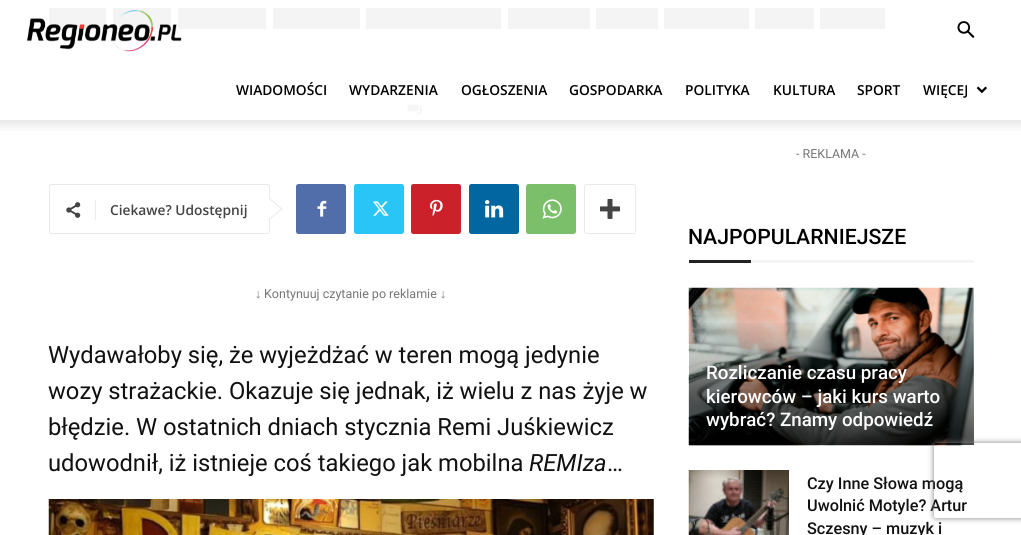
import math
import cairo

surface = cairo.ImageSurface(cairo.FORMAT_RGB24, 1021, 535)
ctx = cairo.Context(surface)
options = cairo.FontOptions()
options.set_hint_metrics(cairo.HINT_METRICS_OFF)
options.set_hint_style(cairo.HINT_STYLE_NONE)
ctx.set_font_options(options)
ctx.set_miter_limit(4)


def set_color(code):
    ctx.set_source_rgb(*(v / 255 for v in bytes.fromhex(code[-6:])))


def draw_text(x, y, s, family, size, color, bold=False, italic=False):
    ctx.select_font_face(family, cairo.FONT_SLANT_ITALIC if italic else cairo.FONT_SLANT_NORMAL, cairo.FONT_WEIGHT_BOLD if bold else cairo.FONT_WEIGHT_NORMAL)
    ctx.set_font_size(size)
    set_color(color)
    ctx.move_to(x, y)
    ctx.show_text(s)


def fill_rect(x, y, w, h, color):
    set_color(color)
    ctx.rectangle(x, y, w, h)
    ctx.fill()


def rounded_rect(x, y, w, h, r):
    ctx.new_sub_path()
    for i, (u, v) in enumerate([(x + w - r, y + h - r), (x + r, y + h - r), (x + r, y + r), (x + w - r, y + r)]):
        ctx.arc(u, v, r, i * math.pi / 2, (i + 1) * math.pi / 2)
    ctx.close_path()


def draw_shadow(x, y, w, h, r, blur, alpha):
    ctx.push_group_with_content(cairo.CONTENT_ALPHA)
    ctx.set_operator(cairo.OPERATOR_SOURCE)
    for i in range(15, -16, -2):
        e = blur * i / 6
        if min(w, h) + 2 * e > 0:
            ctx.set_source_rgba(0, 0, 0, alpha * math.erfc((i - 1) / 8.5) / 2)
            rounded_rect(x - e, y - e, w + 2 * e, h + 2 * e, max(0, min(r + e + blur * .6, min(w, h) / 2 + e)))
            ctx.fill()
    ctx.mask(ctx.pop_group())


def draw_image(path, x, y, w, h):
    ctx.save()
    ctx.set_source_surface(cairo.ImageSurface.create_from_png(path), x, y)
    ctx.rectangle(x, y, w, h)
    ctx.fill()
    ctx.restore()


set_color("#ffffff")
ctx.paint()
draw_image("assets/img1.png", 957, 21, 18, 17)
fill_rect(49, 8, 57, 21, "#f4f4f4")
fill_rect(113, 8, 58, 21, "#f4f4f4")
fill_rect(178, 8, 88, 21, "#f4f4f4")
draw_image("assets/img2.png", 27, 9, 155, 43)
draw_text(236, 95, "WIADOMOŚCI", "Open Sans SemiBold", 13.75, "#000000")
draw_text(349, 95, "WYDARZENIA", "Open Sans SemiBold", 13.75, "#000000")
draw_text(461, 95, "OGŁOSZENIA", "Open Sans SemiBold", 13.75, "#000000")
draw_text(569, 95, "GOSPODARKA", "Open Sans SemiBold", 13.75, "#000000")
draw_text(685, 95, "POLITYKA", "Open Sans SemiBold", 13.75, "#000000")
draw_text(773, 95, "KULTURA", "Open Sans SemiBold", 13.75, "#000000")
draw_text(857, 95, "SPORT", "Open Sans SemiBold", 13.75, "#000000")
draw_text(923, 95, "WIĘCEJ", "Open Sans SemiBold", 13.75, "#000000")
draw_image("assets/img3.png", 976, 86, 11, 8)
draw_image("assets/img4.png", 0, 120, 1021, 11)
fill_rect(273, 8, 87, 21, "#f4f4f4")
fill_rect(366, 8, 135, 21, "#f4f4f4")
fill_rect(508, 8, 82, 21, "#f4f4f4")
fill_rect(596, 8, 62, 21, "#f4f4f4")
fill_rect(664, 8, 85, 21, "#f4f4f4")
fill_rect(755, 8, 59, 21, "#f4f4f4")
fill_rect(820, 8, 65, 21, "#f4f4f4")
draw_image("assets/img5.png", 407, 104, 16, 12)
rounded_rect(49.5, 184.5, 220, 49, 2)
set_color("#e9e9e9")
ctx.set_line_width(1)
ctx.stroke()
ctx.new_path()
ctx.move_to(269, 220)
ctx.line_to(269, 197.5)
ctx.line_to(282.5, 209)
ctx.close_path()
ctx.fill()
draw_image("assets/img6.png", 66, 202, 15, 16)
fill_rect(95, 200, 1, 20, "#ebebeb")
draw_text(110, 215, "Ciekawe? Udostępnij", "Open Sans SemiBold", 13.75, "#444444")
set_color("#ffffff")
ctx.new_path()
ctx.move_to(269, 219)
ctx.line_to(269, 199)
ctx.line_to(281, 209)
ctx.close_path()
ctx.fill()
set_color("#516eab")
rounded_rect(296, 184, 50, 50, 2.5)
ctx.fill()
draw_image("assets/img7.png", 317, 200, 10, 17)
set_color("#29c5f6")
rounded_rect(354, 184, 50, 50, 2.5)
ctx.fill()
draw_image("assets/img8.png", 373, 201, 16, 15)
set_color("#ca212a")
rounded_rect(411, 184, 50, 50, 2.5)
ctx.fill()
draw_image("assets/img9.png", 430, 199, 13, 17)
set_color("#0266a0")
rounded_rect(469, 184, 50, 50, 2.5)
ctx.fill()
draw_image("assets/img10.png", 485, 200, 19, 18)
set_color("#7bbf6a")
rounded_rect(526, 184, 50, 50, 2.5)
ctx.fill()
draw_image("assets/img11.png", 542, 199, 20, 20)
rounded_rect(584.5, 184.5, 51, 49, 2)
set_color("#e9e9e9")
ctx.stroke()
draw_image("assets/img12.png", 600, 198, 20, 21)
draw_text(255, 298, "↓", "Liberation Sans", 12.5, "#767676")
draw_text(264, 298, "Kontynuuj czytanie po reklamie", "Roboto", 12.5, "#767676")
draw_text(440, 298, "↓", "Liberation Sans", 12.5, "#767676")
draw_text(48, 363, "Wydawałoby się, że wyjeżdżać w teren mogą jedynie", "Roboto", 23.75, "#111111")
draw_text(48, 399, "wozy strażackie. Okazuje się jednak, iż wielu z nas żyje w", "Roboto", 23.75, "#111111")
draw_text(48, 435, "błędzie. W ostatnich dniach stycznia Remi Juśkiewicz", "Roboto", 23.75, "#111111")
draw_text(48, 471, "udowodnił, iż istnieje coś takiego jak mobilna", "Roboto", 23.75, "#111111")
draw_text(529, 471, "REMIza", "Roboto", 23.75, "#111111", italic=True)
draw_text(607, 471, "…", "Roboto", 23.75, "#111111")
draw_image("assets/img13.png", 48, 499, 606, 36)
draw_text(796, 158, "- REKLAMA -", "Roboto", 12.5, "#767676")
draw_text(688, 244, "NAJPOPULARNIEJSZE", "Roboto Medium", 21.25, "#000000")
fill_rect(689, 260, 62, 3, "#222222")
fill_rect(751, 260, 223, 3, "#f5f5f5")
draw_image("assets/img14.png", 688, 287, 286, 159)
gradient = cairo.LinearGradient(831, 319, 831, 445)
gradient.add_color_stop_rgba(0, 0, 0, 0, 0)
gradient.add_color_stop_rgba(1, 0, 0, 0, 0.7)
ctx.set_source(gradient)
ctx.rectangle(689, 323, 285, 122)
ctx.fill()
draw_text(706, 379, "Rozliczanie czasu pracy", "Roboto Medium", 18.75, "#ffffff")
draw_text(706, 403, "kierowców – jaki kurs warto", "Roboto Medium", 18.75, "#ffffff")
draw_text(706, 426, "wybrać? Znamy odpowiedź", "Roboto Medium", 18.75, "#ffffff")
draw_image("assets/img15.png", 688, 470, 101, 65)
draw_text(807, 489, "Czy Inne Słowa mogą", "Roboto Medium", 16.25, "#111111")
draw_text(807, 511, "Uwolnić Motyle? Artur", "Roboto Medium", 16.25, "#111111")
draw_text(807, 534, "Sczesny – muzyk i", "Roboto Medium", 16.25, "#111111")
ctx.save()
ctx.set_fill_rule(cairo.FILL_RULE_EVEN_ODD)
ctx.new_path()
ctx.move_to(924, 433)
ctx.line_to(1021, 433)
ctx.line_to(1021, 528)
ctx.line_to(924, 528)
ctx.close_path()
ctx.move_to(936.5, 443)
ctx.line_to(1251.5, 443)
ctx.curve_to(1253, 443, 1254, 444, 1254, 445.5)
ctx.line_to(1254, 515.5)
ctx.curve_to(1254, 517, 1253, 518, 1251.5, 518)
ctx.line_to(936.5, 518)
ctx.curve_to(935, 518, 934, 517, 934, 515.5)
ctx.line_to(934, 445.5)
ctx.curve_to(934, 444, 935, 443, 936.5, 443)
ctx.close_path()
ctx.clip()
set_color("#808080")
draw_shadow(934, 443, 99, 75, 2.5, 3, 1)
ctx.restore()
surface.write_to_png("output.png")
